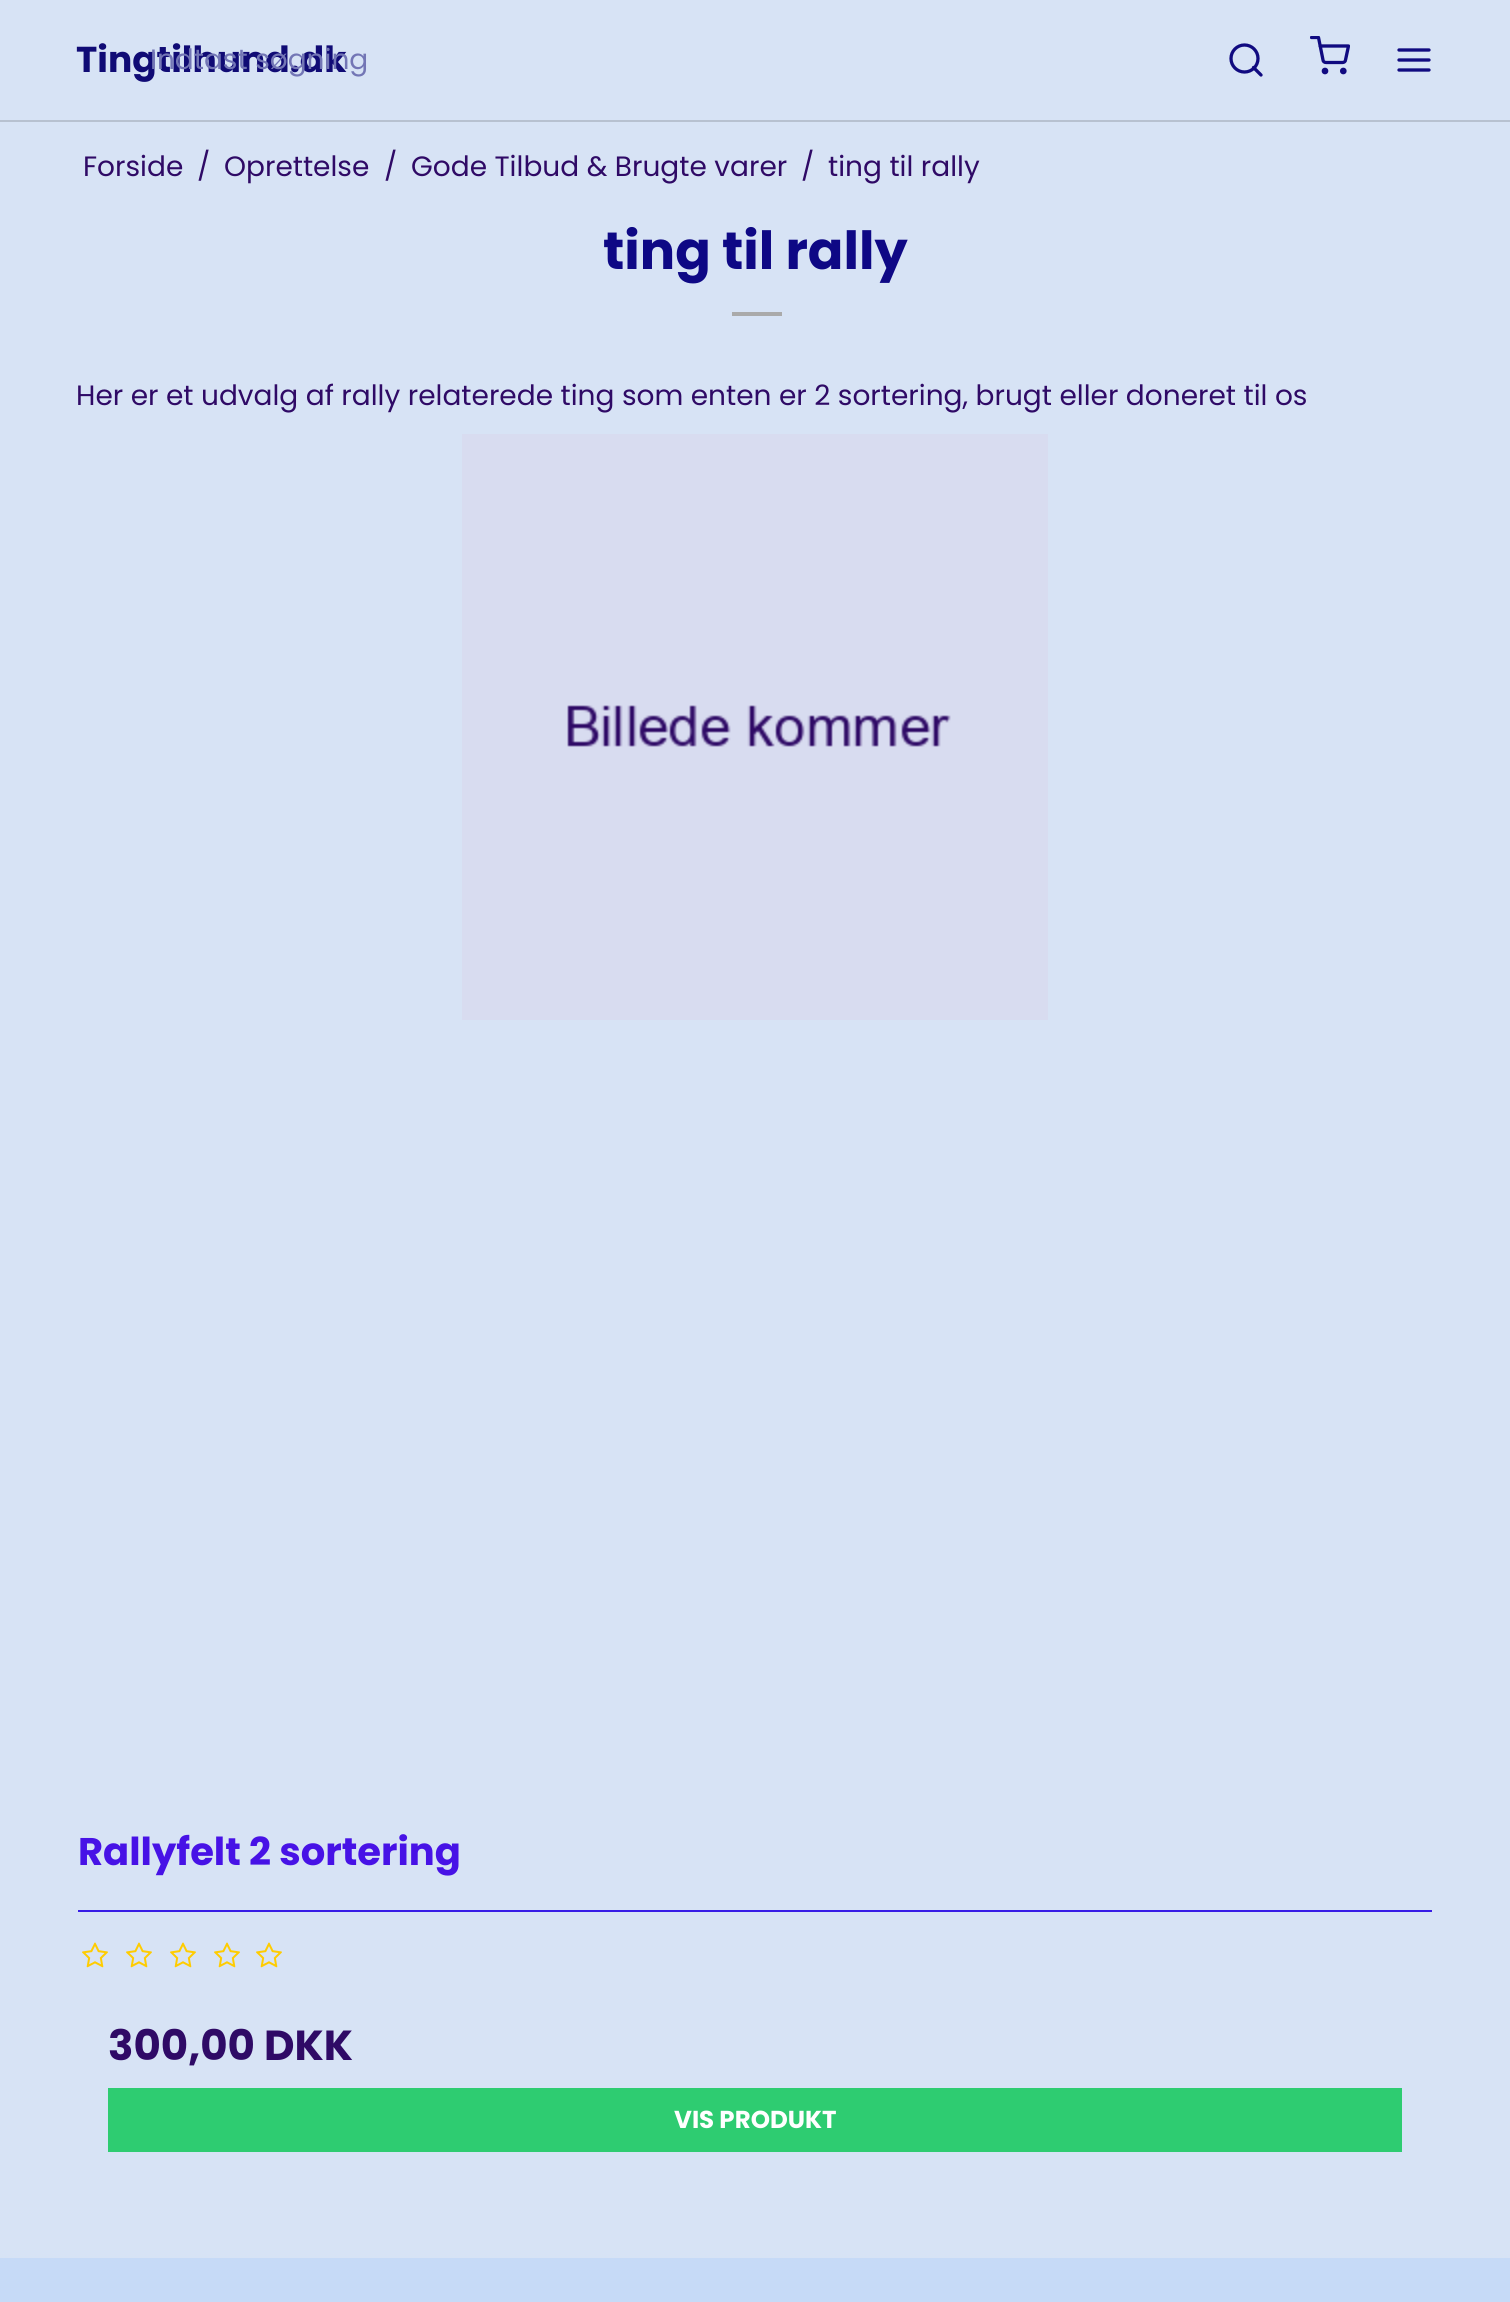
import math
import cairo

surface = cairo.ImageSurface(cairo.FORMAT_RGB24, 1510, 2302)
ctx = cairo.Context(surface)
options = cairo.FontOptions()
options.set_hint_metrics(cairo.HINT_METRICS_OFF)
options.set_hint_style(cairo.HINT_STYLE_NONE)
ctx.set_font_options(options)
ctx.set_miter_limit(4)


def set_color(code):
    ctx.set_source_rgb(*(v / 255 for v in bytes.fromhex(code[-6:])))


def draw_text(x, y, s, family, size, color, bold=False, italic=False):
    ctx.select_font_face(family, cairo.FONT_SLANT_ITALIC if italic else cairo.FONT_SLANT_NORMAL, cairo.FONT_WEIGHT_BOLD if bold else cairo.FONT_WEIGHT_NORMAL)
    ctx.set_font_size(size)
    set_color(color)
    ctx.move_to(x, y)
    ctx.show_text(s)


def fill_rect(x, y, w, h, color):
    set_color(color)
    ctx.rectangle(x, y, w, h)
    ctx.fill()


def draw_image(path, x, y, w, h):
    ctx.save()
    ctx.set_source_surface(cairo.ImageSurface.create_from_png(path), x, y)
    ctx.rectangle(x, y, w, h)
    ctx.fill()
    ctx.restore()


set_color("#d7e3f5")
ctx.paint()
fill_rect(0, 120, 1510, 2, "#b7c1d0")
draw_text(76, 72, "Tingtilhund.dk", "Poppins", 36, "#100b75", bold=True)
draw_text(150, 69, "Indtast søgning", "Poppins", 28, "#7376b5")
ctx.new_path()
ctx.arc(1244.5, 58.5, 13.5, 0, 2 * math.pi)
set_color("#100a80")
ctx.set_line_width(3.3)
ctx.stroke()
ctx.new_path()
ctx.move_to(1261, 75)
ctx.line_to(1253.5, 67.5)
ctx.set_line_cap(cairo.LINE_CAP_ROUND)
ctx.set_line_join(cairo.LINE_JOIN_ROUND)
ctx.stroke()
ctx.save()
ctx.rectangle(1310, 36, 40, 40)
ctx.clip()
ctx.new_path()
ctx.move_to(1311.5, 37.5)
ctx.line_to(1318.5, 37.5)
ctx.line_to(1323, 60)
ctx.curve_to(1323, 61.5, 1324.5, 62.5, 1326, 62.5)
ctx.line_to(1342.5, 62.5)
ctx.curve_to(1344, 62.5, 1345.5, 61.5, 1345.5, 60)
ctx.line_to(1348.5, 46)
ctx.line_to(1320, 46)
ctx.stroke()
ctx.restore()
ctx.arc(1325, 71, 1.7, 0, 2 * math.pi)
ctx.set_line_cap(cairo.LINE_CAP_BUTT)
ctx.set_line_join(cairo.LINE_JOIN_MITER)
ctx.stroke()
ctx.arc(1343.3, 71, 1.7, 0, 2 * math.pi)
ctx.stroke()
ctx.new_path()
ctx.move_to(1399, 60)
ctx.line_to(1429, 60)
ctx.move_to(1399, 50)
ctx.line_to(1429, 50)
ctx.move_to(1399, 70)
ctx.line_to(1429, 70)
ctx.set_line_cap(cairo.LINE_CAP_ROUND)
ctx.set_line_join(cairo.LINE_JOIN_ROUND)
ctx.stroke()
draw_text(83, 176, "Forside", "Poppins", 28, "#2f0a66")
draw_text(197, 176, "/", "Poppins", 28, "#2f0a66")
draw_text(224, 176, "Oprettelse", "Poppins", 28, "#2f0a66")
draw_text(384, 176, "/", "Poppins", 28, "#2f0a66")
draw_text(411, 176, "Gode Tilbud & Brugte varer", "Poppins", 28, "#2f0a66")
draw_text(801, 176, "/", "Poppins", 28, "#2f0a66")
draw_text(828, 176, "ting til rally", "Poppins", 28, "#2f0a66")
draw_text(603, 269, "ting til rally", "Poppins", 52.5, "#0e0885", bold=True)
fill_rect(732, 312, 50, 4, "#aaaaaa")
draw_text(76, 405, "Her er et udvalg af rally relaterede ting som enten er 2 sortering, brugt eller doneret til os", "Poppins", 28, "#2f0a66")
draw_image("assets/img1.png", 462, 434, 586, 586)
draw_text(78, 1865, "Rallyfelt 2 sortering", "Poppins", 38.5, "#4712e6", bold=True)
fill_rect(78, 1910, 1354, 2, "#371ce6")
draw_image("assets/img2.png", 82, 1942, 26, 26)
draw_image("assets/img2.png", 126, 1942, 26, 26)
draw_image("assets/img2.png", 170, 1942, 26, 26)
draw_image("assets/img2.png", 214, 1942, 26, 26)
draw_image("assets/img2.png", 256, 1942, 26, 26)
draw_text(108, 2060, "300,00 DKK", "Poppins", 42, "#2f0a66", bold=True)
fill_rect(108, 2088, 1294, 64, "#2ecc71")
draw_text(674, 2128, "VIS PRODUKT", "Poppins", 24.5, "#ffffff", bold=True)
fill_rect(0, 2258, 1510, 44, "#c6daf7")
surface.write_to_png("output.png")
